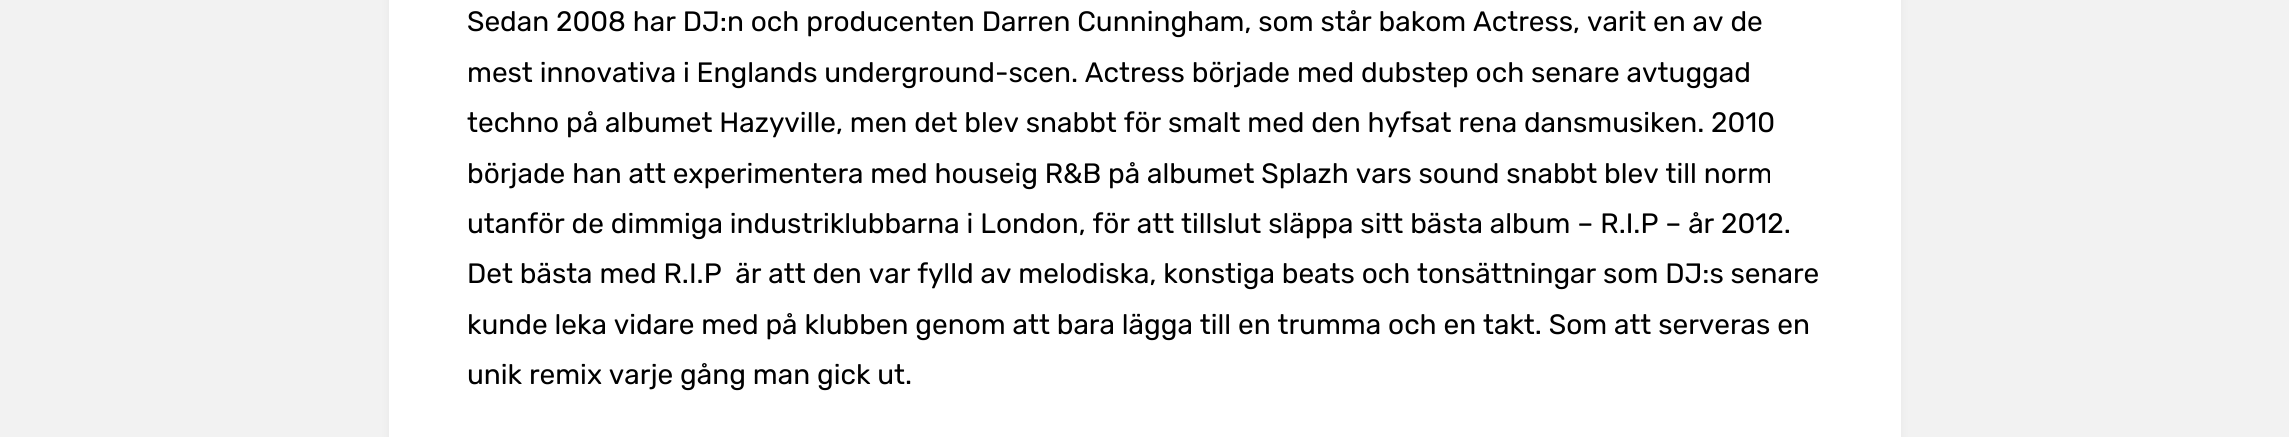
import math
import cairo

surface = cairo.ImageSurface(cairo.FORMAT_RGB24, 2289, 437)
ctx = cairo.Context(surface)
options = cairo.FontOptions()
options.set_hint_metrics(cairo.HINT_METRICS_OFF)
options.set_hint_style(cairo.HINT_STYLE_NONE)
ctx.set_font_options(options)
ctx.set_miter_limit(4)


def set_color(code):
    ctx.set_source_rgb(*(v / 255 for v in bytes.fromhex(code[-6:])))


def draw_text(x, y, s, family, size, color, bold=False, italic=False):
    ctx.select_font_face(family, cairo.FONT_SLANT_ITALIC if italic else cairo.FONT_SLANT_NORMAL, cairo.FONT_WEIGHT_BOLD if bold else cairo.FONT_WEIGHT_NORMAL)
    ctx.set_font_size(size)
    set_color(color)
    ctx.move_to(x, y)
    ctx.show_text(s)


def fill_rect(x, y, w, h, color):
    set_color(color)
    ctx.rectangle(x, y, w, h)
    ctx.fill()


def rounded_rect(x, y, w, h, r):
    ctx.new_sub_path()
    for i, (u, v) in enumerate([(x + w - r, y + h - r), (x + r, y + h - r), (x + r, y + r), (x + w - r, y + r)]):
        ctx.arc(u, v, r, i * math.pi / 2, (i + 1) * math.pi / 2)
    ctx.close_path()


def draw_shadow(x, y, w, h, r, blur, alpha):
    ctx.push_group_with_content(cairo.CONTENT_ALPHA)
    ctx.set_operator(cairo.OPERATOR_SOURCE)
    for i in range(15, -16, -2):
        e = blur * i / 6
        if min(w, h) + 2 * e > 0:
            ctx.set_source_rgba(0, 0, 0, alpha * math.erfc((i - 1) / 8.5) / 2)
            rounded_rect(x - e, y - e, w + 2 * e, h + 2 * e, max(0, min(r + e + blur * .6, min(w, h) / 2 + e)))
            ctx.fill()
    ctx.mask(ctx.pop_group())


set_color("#f2f2f2")
ctx.paint()
set_color("#000001")
draw_shadow(389, -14, 1512, 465, 0, 4.5, 0.05)
fill_rect(389, 0, 1512, 437, "#ffffff")
draw_text(467, 31, "Sedan 2008 har DJ:n och producenten Darren Cunningham, som står bakom Actress, varit en av de", "Rubik", 28, "#000000")
draw_text(467, 82, "mest innovativa i Englands underground-scen. Actress började med dubstep och senare avtuggad", "Rubik", 28, "#000000")
draw_text(467, 132, "techno på albumet Hazyville, men det blev snabbt för smalt med den hyfsat rena dansmusiken. 2010", "Rubik", 28, "#000000")
draw_text(467, 183, "började han att experimentera med houseig R&B på albumet Splazh vars sound snabbt blev till norm", "Rubik", 28, "#000000")
draw_text(467, 233, "utanför de dimmiga industriklubbarna i London, för att tillslut släppa sitt bästa album – R.I.P – år 2012.", "Rubik", 28, "#000000")
draw_text(467, 283, "Det bästa med R.I.P  är att den var fylld av melodiska, konstiga beats och tonsättningar som DJ:s senare", "Rubik", 28, "#000000")
draw_text(467, 334, "kunde leka vidare med på klubben genom att bara lägga till en trumma och en takt. Som att serveras en", "Rubik", 28, "#000000")
draw_text(467, 384, "unik remix varje gång man gick ut.", "Rubik", 28, "#000000")
surface.write_to_png("output.png")
